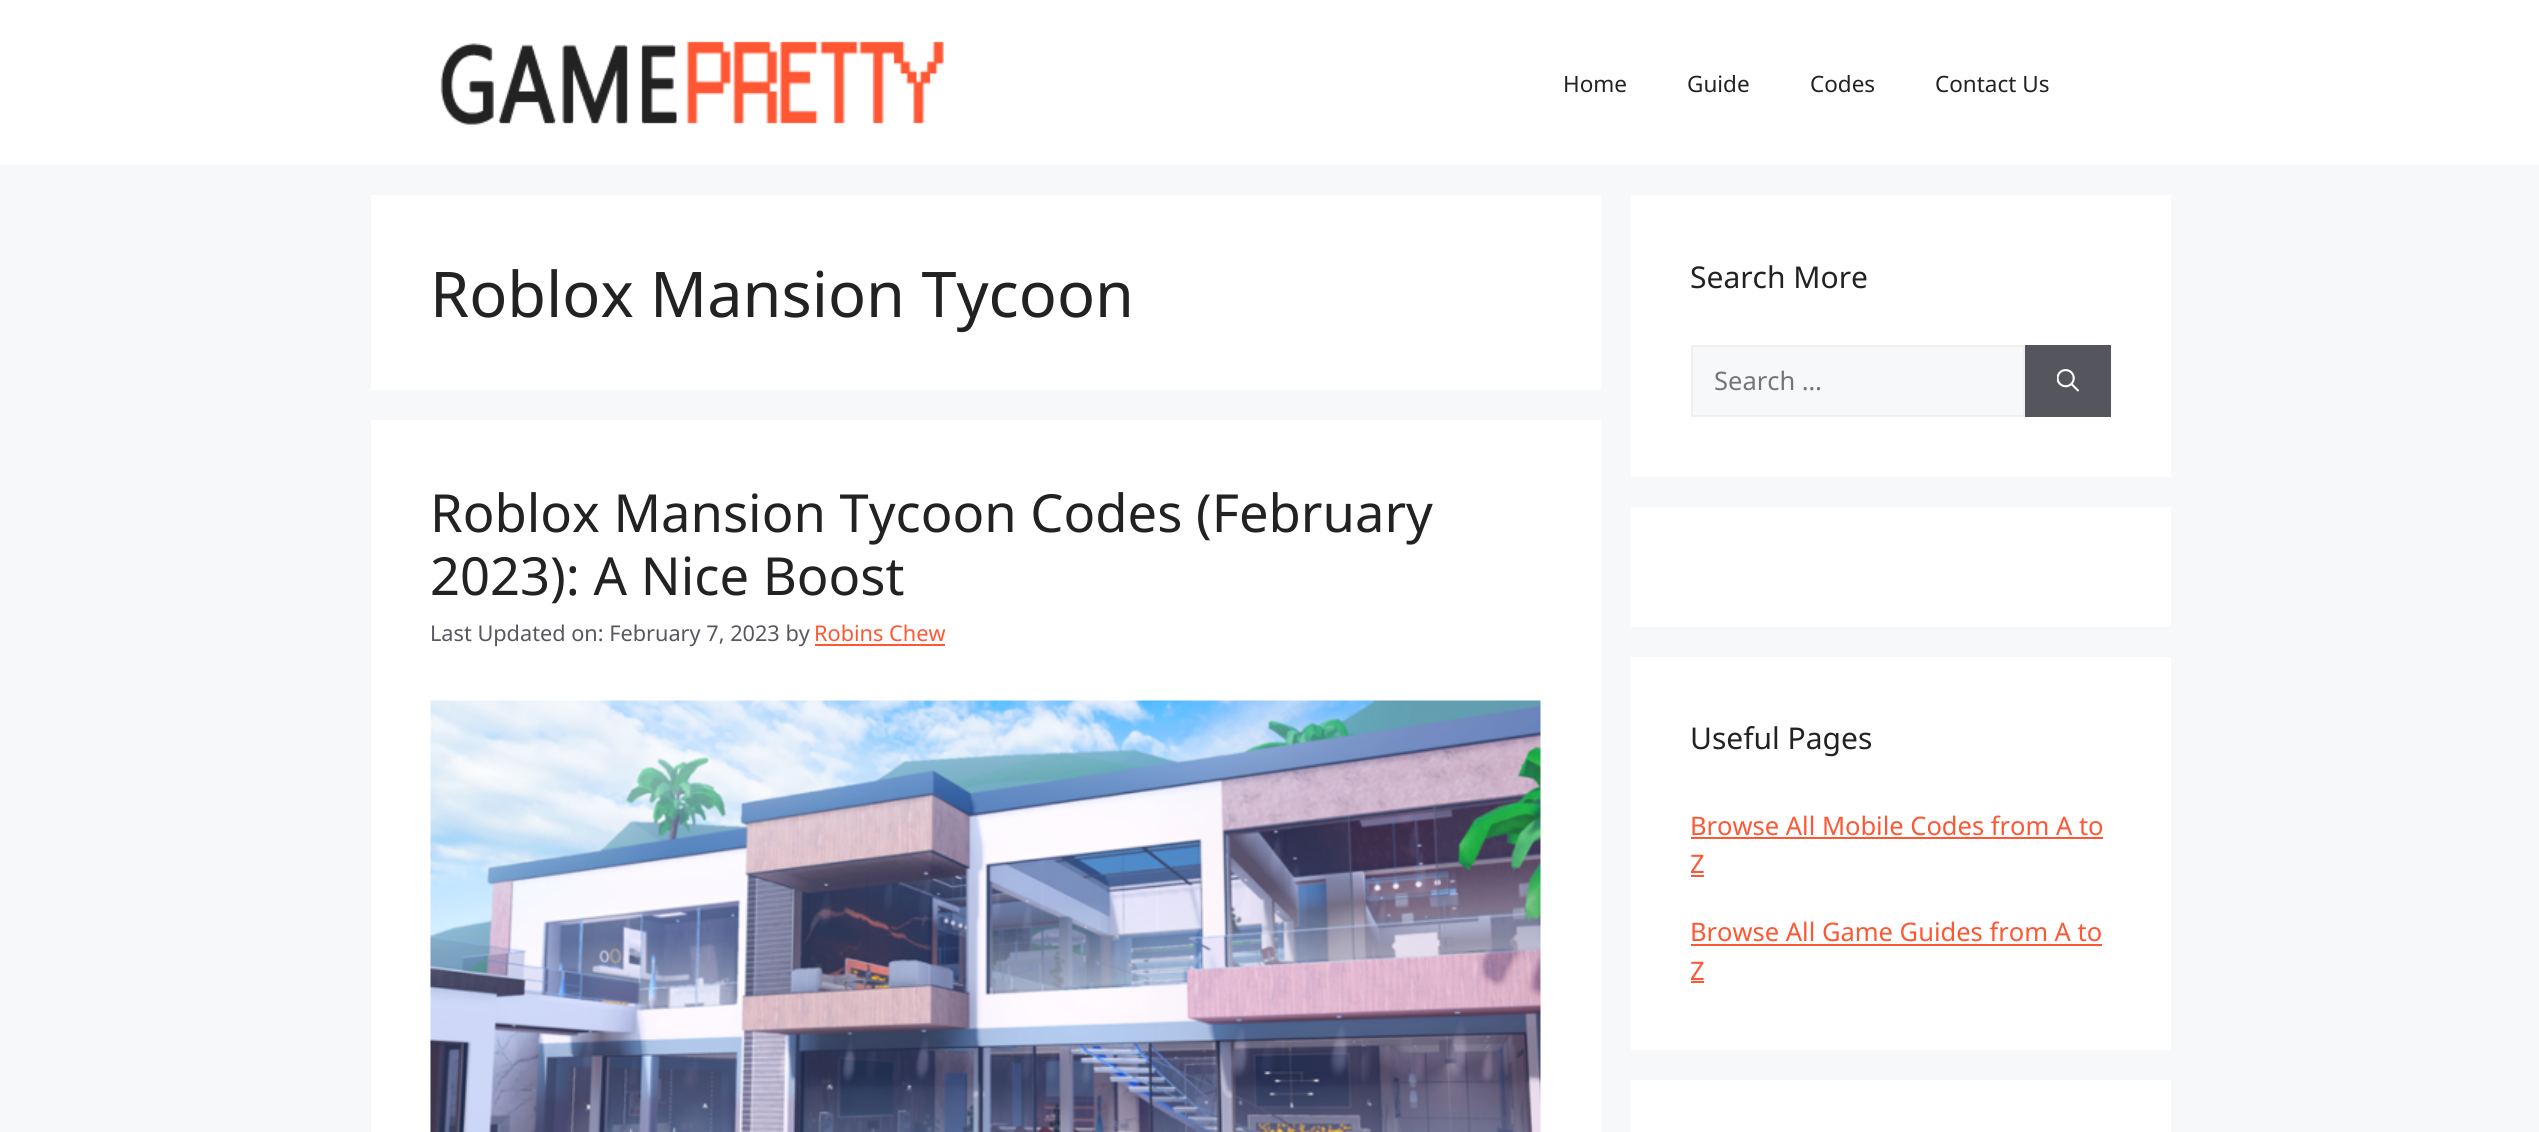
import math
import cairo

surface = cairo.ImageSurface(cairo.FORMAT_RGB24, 2539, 1132)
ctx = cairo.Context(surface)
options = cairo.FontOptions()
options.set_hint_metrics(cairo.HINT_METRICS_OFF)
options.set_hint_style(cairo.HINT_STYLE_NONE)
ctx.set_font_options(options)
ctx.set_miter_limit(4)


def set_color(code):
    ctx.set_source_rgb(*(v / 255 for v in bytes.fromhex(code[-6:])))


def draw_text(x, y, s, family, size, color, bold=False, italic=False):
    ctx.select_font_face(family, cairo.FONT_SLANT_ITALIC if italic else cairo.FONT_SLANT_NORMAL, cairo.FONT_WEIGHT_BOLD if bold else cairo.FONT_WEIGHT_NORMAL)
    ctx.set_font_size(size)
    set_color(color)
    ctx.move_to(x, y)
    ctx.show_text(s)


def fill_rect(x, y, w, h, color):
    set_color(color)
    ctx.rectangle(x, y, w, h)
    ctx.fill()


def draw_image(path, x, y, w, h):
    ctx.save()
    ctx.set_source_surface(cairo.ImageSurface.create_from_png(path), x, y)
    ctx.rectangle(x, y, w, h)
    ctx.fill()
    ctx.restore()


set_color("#f7f8f9")
ctx.paint()
fill_rect(0, 0, 2539, 165, "#ffffff")
draw_image("assets/img1.png", 440, 41, 504, 84)
draw_text(1563, 92, "Home", "Noto Sans", 22.5, "#222222")
draw_text(1687, 92, "Guide", "Noto Sans", 22.5, "#222222")
draw_text(1810, 92, "Codes", "Noto Sans", 22.5, "#222222")
draw_text(1935, 92, "Contact Us", "Noto Sans", 22.5, "#222222")
fill_rect(371, 195, 1230, 195, "#ffffff")
draw_text(430, 317, "Roblox Mansion Tycoon", "Noto Sans", 63, "#222222")
fill_rect(371, 420, 1230, 712, "#ffffff")
draw_text(430, 532, "Roblox Mansion Tycoon Codes (February", "Noto Sans", 52.5, "#222222")
draw_text(430, 595, "2023): A Nice Boost", "Noto Sans", 52.5, "#222222")
draw_text(430, 641, "Last Updated on: February 7, 2023 by", "Noto Sans", 21.7, "#575760")
draw_text(814, 641, "Robins Chew", "Noto Sans", 21.7, "#ff5733")
fill_rect(815, 644, 130, 2, "#ff5733")
draw_image("assets/img2.png", 430, 700, 1111, 432)
fill_rect(1631, 195, 540, 282, "#ffffff")
draw_text(1690, 288, "Search More", "Noto Sans", 30, "#222222")
set_color("#f7f8f9")
ctx.rectangle(1692, 346, 332, 70)
ctx.fill_preserve()
set_color("#f0f0f0")
ctx.stroke()
draw_text(1714, 390, "Search …", "Noto Sans", 25.5, "#757575")
fill_rect(2025, 345, 86, 72, "#55555e")
draw_image("assets/img3.png", 2057, 369, 22, 23)
fill_rect(1631, 507, 540, 120, "#ffffff")
fill_rect(1631, 657, 540, 393, "#ffffff")
draw_text(1690, 749, "Useful Pages", "Noto Sans", 30, "#222222")
draw_text(1690, 835, "Browse All Mobile Codes from A to", "Noto Sans", 25.5, "#ff5733")
fill_rect(1691, 837, 412, 2, "#ff5733")
draw_text(1690, 873, "Z", "Noto Sans", 25.5, "#ff5733")
fill_rect(1691, 875, 13, 2, "#ff5733")
draw_text(1690, 941, "Browse All Game Guides from A to", "Noto Sans", 25.5, "#ff5733")
fill_rect(1691, 944, 411, 2, "#ff5733")
draw_text(1690, 980, "Z", "Noto Sans", 25.5, "#ff5733")
fill_rect(1691, 981, 13, 2, "#ff5733")
fill_rect(1631, 1080, 540, 52, "#ffffff")
surface.write_to_png("output.png")
